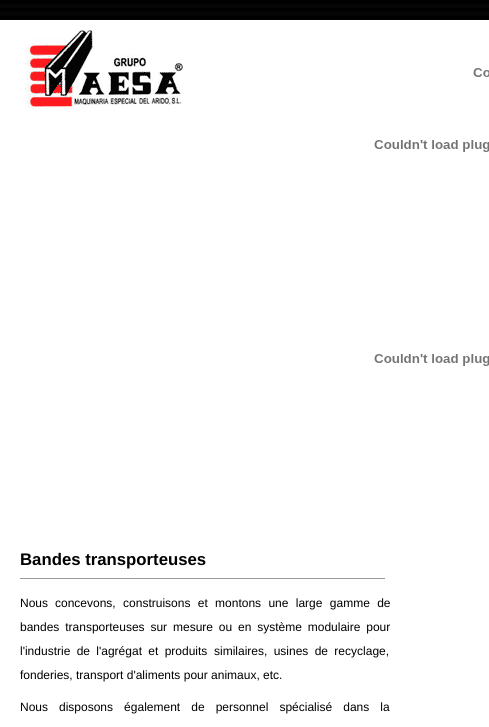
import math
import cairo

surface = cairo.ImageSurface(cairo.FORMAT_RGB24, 489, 727)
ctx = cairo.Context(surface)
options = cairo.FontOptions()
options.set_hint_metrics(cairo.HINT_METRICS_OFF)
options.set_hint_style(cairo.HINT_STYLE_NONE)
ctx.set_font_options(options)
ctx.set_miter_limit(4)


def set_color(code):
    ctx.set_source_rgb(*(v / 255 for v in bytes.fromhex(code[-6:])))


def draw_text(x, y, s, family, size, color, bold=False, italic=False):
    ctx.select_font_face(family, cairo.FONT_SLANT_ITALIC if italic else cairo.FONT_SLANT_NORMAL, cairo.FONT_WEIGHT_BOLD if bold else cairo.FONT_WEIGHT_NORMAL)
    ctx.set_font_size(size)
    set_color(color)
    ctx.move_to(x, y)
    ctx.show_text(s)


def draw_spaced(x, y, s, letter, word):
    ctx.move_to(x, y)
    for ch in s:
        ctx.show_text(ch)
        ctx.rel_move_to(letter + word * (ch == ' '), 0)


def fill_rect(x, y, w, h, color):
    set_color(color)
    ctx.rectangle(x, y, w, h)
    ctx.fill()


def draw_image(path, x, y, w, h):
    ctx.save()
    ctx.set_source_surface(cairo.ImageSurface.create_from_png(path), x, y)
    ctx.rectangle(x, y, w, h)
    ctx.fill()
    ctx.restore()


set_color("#ffffff")
ctx.paint()
draw_image("assets/img1.png", 0, 0, 489, 20)
draw_image("assets/img2.png", 25, 29, 158, 81)
draw_image("assets/img3.png", 473, 68, 16, 9)
draw_image("assets/img4.png", 374, 140, 115, 12)
draw_image("assets/img4.png", 374, 354, 115, 12)
fill_rect(20, 578, 365, 1, "#999999")
draw_text(20, 565, "Bandes transporteuses", "Liberation Sans", 16.75, "#000000", bold=True)
draw_text(20, 607, "Nous", "Liberation Sans", 12, "#000000")
draw_spaced(55, 607, "concevons, construisons et montons une large gamme de", 0, 4)
draw_spaced(20, 631, "bandes transporteuses sur", 0, 2.5)
draw_spaced(173, 631, "mesure ou en système modulaire pour", 0, 2.5)
draw_spaced(20, 655, "l'industrie de l'agrégat et produits", 0, 3)
draw_spaced(214, 655, "similaires, usines de recyclage,", 0, 3)
draw_text(20, 679, "fonderies, transport d'aliments pour animaux, etc.", "Liberation Sans", 12, "#000000")
draw_text(20, 711, "Nous", "Liberation Sans", 12, "#000000")
draw_spaced(59, 711, "disposons également de personnel spécialisé dans la", 0, 7.75)
surface.write_to_png("output.png")
